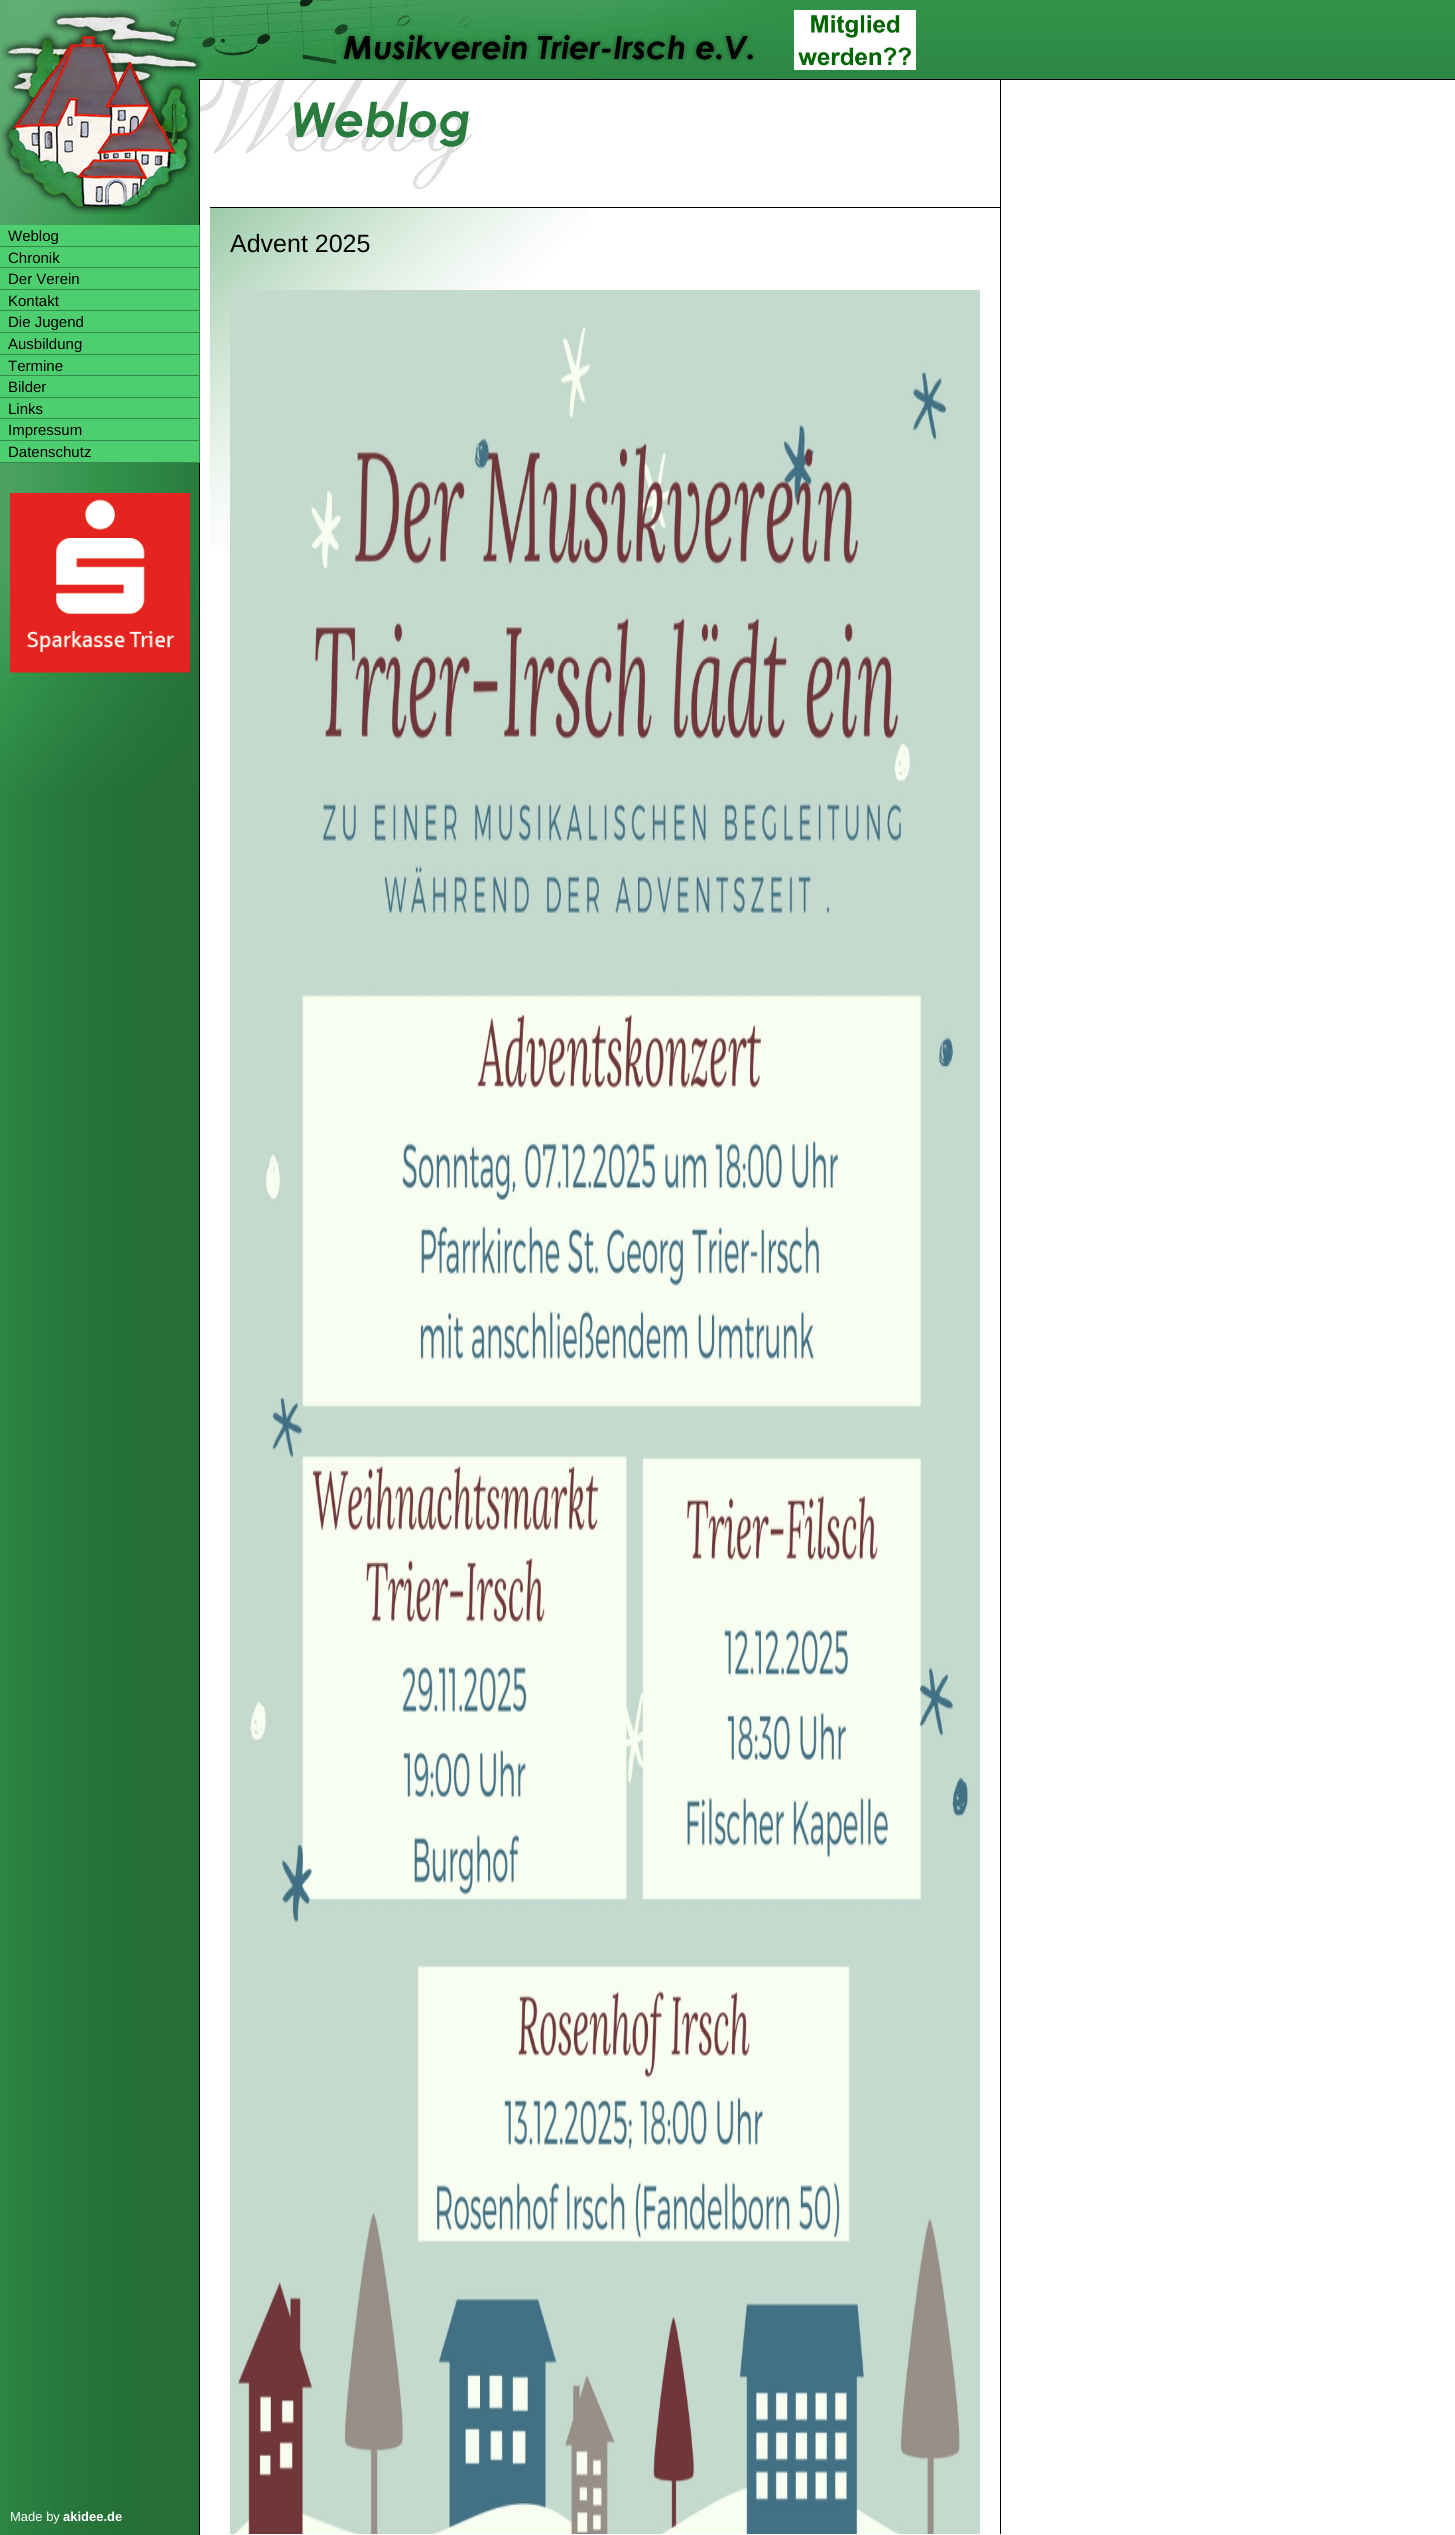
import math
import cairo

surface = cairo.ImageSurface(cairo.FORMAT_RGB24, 1455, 2535)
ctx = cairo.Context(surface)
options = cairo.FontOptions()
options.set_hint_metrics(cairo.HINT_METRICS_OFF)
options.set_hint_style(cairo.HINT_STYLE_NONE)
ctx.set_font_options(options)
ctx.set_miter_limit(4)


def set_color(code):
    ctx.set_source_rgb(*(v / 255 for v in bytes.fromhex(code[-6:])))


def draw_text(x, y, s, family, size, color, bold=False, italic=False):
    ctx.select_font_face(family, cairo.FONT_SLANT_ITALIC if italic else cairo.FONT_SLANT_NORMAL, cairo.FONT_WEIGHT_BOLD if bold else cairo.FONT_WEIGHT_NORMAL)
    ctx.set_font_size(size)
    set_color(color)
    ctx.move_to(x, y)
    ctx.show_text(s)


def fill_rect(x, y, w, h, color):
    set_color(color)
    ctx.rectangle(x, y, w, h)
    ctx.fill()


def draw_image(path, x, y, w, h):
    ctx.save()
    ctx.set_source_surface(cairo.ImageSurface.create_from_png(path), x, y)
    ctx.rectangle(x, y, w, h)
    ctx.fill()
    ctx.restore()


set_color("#ffffff")
ctx.paint()
draw_image("assets/img1.png", 0, 799, 200, 1736)
draw_image("assets/img2.png", 0, 0, 200, 799)
draw_image("assets/img3.png", 200, 0, 1255, 80)
draw_image("assets/img4.png", 200, 0, 574, 79)
draw_image("assets/img5.png", 794, 10, 122, 60)
fill_rect(0, 225, 199, 21, "#4ecf6f")
fill_rect(199, 225, 1, 238, "#348a4a")
fill_rect(0, 246, 200, 1, "#348a4a")
draw_text(8, 241, "Weblog", "Liberation Sans", 15, "#000000")
fill_rect(0, 247, 199, 20, "#4ecf6f")
fill_rect(0, 267, 200, 1, "#348a4a")
draw_text(8, 263, "Chronik", "Liberation Sans", 15, "#000000")
fill_rect(0, 268, 199, 21, "#4ecf6f")
fill_rect(0, 289, 200, 1, "#348a4a")
draw_text(8, 284, "Der Verein", "Liberation Sans", 15, "#000000")
fill_rect(0, 290, 199, 20, "#4ecf6f")
fill_rect(0, 310, 200, 1, "#348a4a")
draw_text(8, 306, "Kontakt", "Liberation Sans", 15, "#000000")
fill_rect(0, 311, 199, 21, "#4ecf6f")
fill_rect(0, 332, 200, 1, "#348a4a")
draw_text(8, 327, "Die Jugend", "Liberation Sans", 15, "#000000")
fill_rect(0, 333, 199, 21, "#4ecf6f")
fill_rect(0, 354, 200, 1, "#348a4a")
draw_text(8, 349, "Ausbildung", "Liberation Sans", 15, "#000000")
fill_rect(0, 355, 199, 20, "#4ecf6f")
fill_rect(0, 375, 200, 1, "#348a4a")
draw_text(8, 371, "Termine", "Liberation Sans", 15, "#000000")
fill_rect(0, 376, 199, 21, "#4ecf6f")
fill_rect(0, 397, 200, 1, "#348a4a")
draw_text(8, 392, "Bilder", "Liberation Sans", 15, "#000000")
fill_rect(0, 398, 199, 20, "#4ecf6f")
fill_rect(0, 418, 200, 1, "#348a4a")
draw_text(8, 414, "Links", "Liberation Sans", 15, "#000000")
fill_rect(0, 419, 199, 21, "#4ecf6f")
fill_rect(0, 440, 200, 1, "#348a4a")
draw_text(8, 435, "Impressum", "Liberation Sans", 15, "#000000")
fill_rect(0, 441, 199, 21, "#4ecf6f")
fill_rect(0, 462, 200, 1, "#348a4a")
draw_text(8, 457, "Datenschutz", "Liberation Sans", 15, "#000000")
draw_image("assets/img6.png", 10, 493, 180, 180)
fill_rect(1000, 80, 1, 2454, "#000000")
draw_image("assets/img7.png", 200, 80, 273, 109)
draw_image("assets/img8.png", 210, 208, 380, 343)
fill_rect(210, 207, 790, 1, "#000000")
draw_text(230, 252, "Advent 2025", "Liberation Sans", 25, "#000000")
draw_image("assets/img9.png", 230, 290, 750, 2244)
draw_text(10, 2521, "Made by", "Liberation Sans", 13, "#ffffff")
draw_text(63, 2521, "akidee.de", "Liberation Sans", 13, "#ffffff", bold=True)
surface.write_to_png("output.png")
